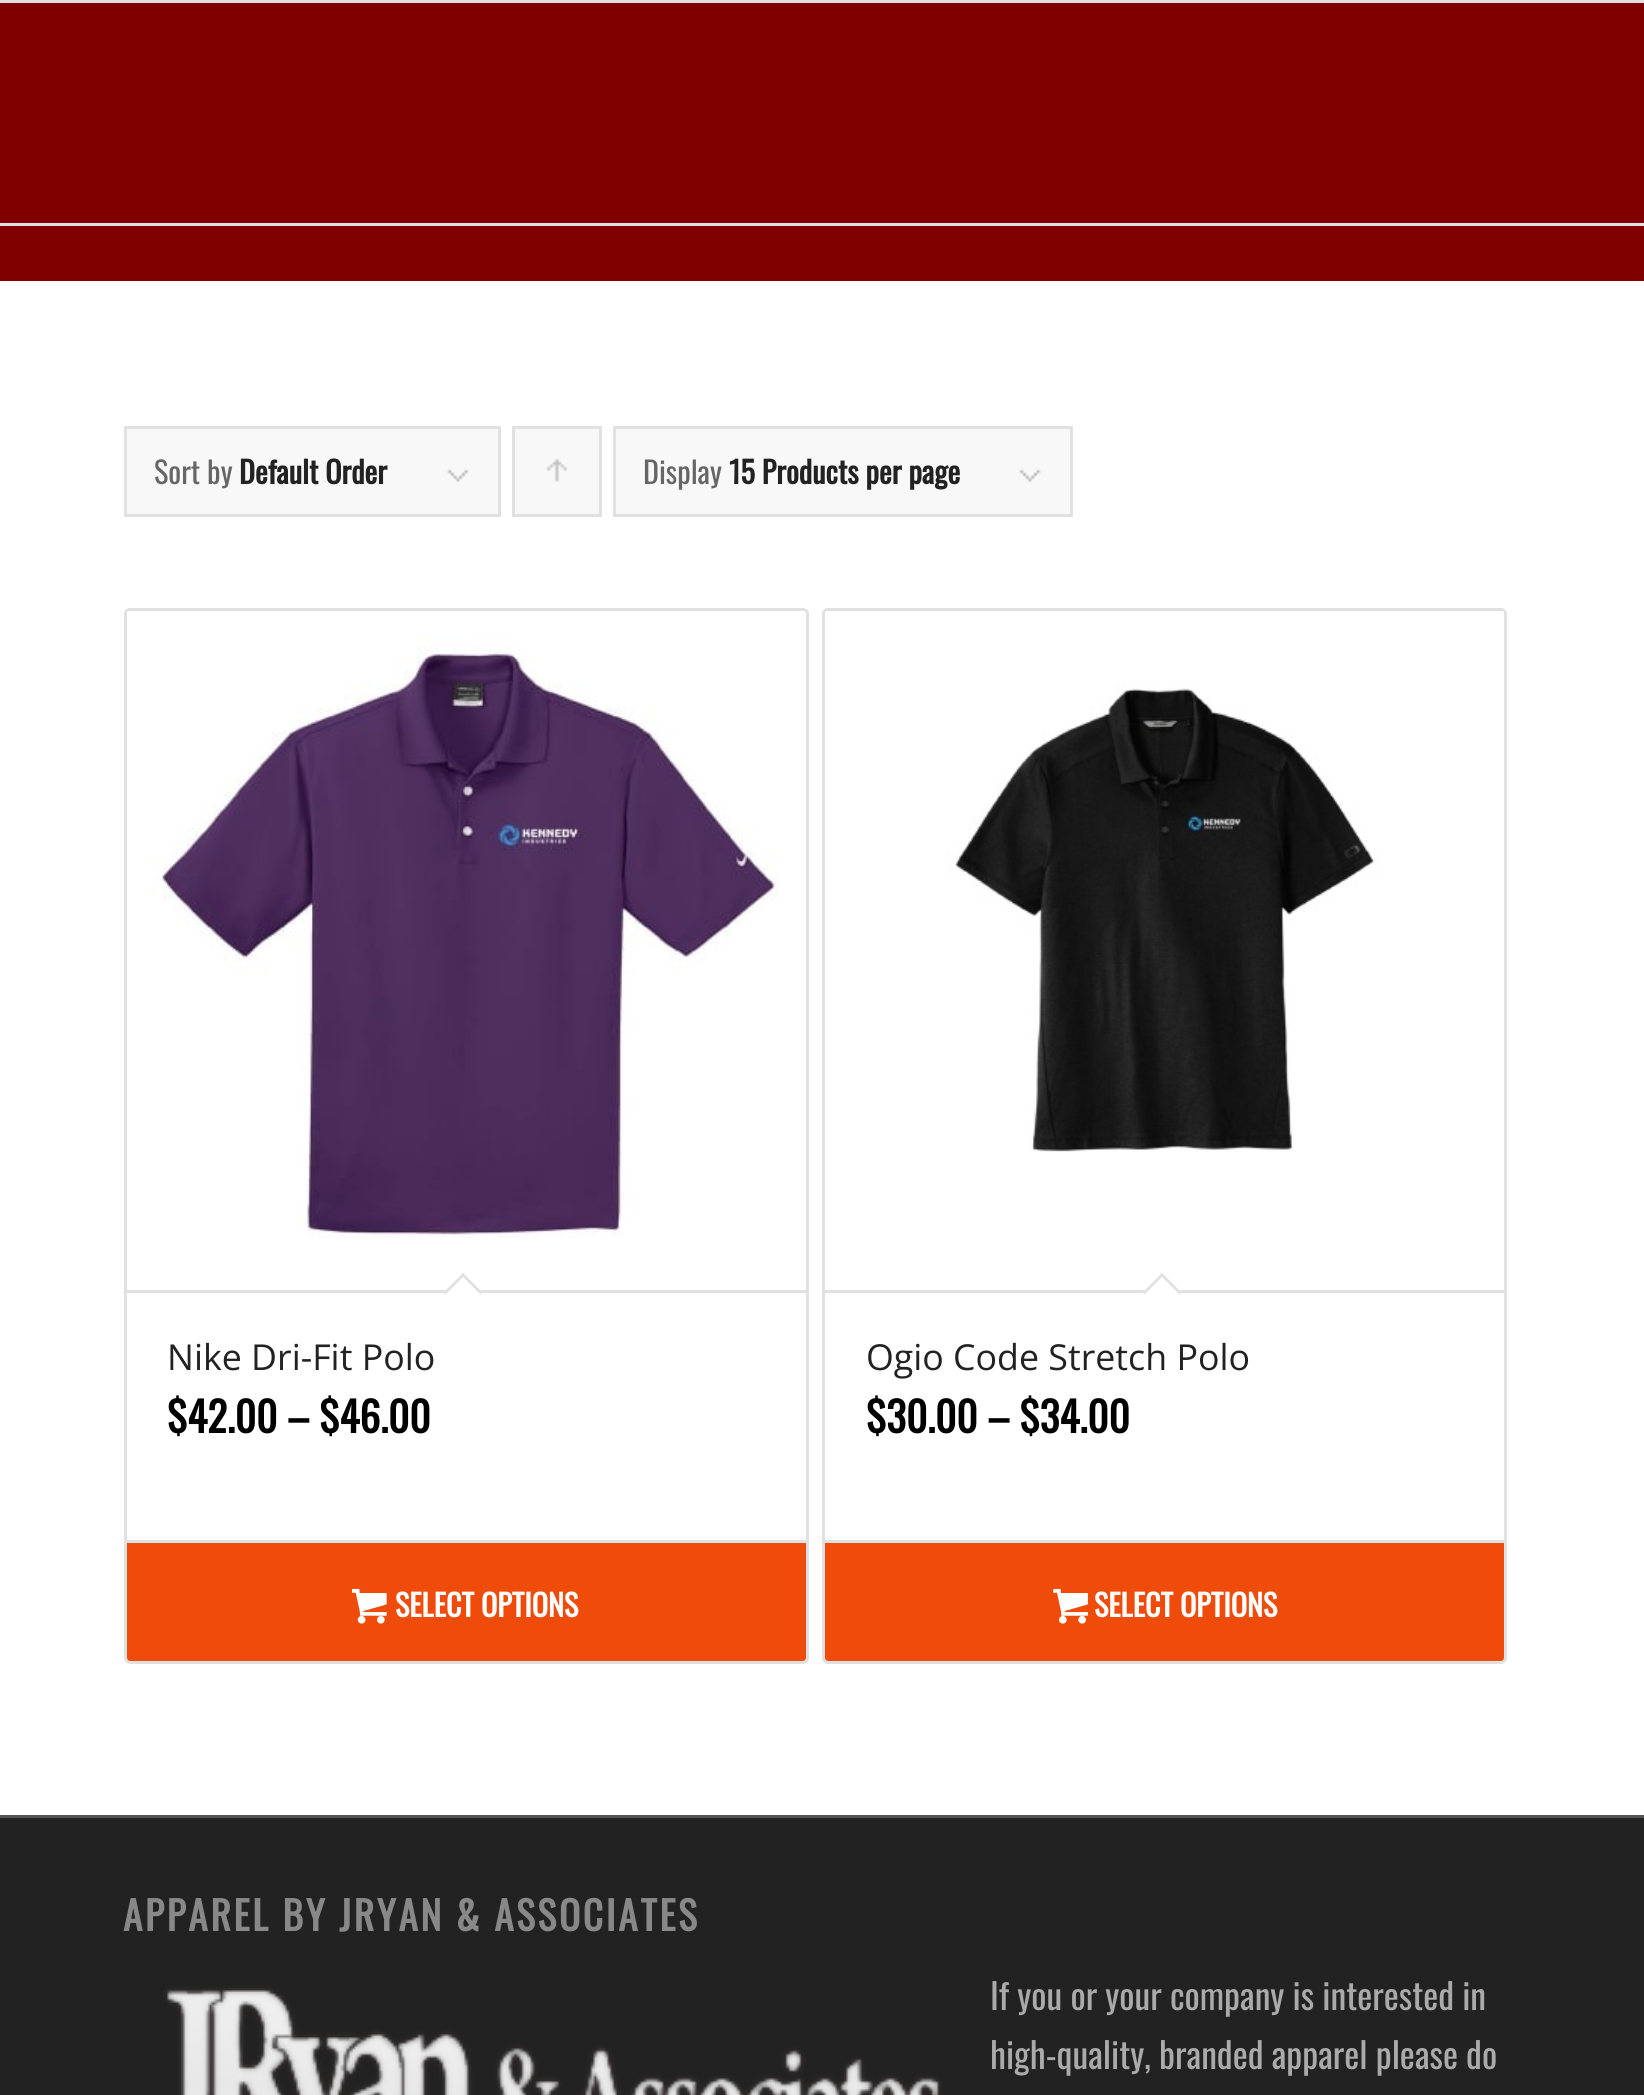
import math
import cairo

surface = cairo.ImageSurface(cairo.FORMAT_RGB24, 1644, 2095)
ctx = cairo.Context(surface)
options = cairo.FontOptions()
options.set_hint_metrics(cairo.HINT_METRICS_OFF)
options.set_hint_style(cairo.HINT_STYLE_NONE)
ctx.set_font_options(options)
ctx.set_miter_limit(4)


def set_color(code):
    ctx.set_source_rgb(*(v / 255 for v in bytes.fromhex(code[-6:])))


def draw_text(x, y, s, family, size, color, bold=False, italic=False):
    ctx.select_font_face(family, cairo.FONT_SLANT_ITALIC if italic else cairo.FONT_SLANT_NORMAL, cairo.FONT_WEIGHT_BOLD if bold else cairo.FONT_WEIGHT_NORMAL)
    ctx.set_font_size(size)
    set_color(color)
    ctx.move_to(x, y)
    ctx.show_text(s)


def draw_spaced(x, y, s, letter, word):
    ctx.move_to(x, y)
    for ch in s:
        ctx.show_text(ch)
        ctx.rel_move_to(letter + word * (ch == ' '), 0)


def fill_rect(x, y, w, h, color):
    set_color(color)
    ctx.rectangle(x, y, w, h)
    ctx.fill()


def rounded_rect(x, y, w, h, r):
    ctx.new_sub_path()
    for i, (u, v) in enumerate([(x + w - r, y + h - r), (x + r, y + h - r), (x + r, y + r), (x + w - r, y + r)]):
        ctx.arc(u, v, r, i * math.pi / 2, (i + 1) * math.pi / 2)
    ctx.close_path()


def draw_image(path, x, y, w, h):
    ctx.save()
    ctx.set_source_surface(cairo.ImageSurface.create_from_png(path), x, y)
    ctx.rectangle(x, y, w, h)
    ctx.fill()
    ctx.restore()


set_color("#800000")
ctx.paint()
fill_rect(0, 0, 1644, 3, "#e1e1e1")
fill_rect(0, 223, 1644, 3, "#e1e1e1")
fill_rect(0, 281, 1644, 1534, "#ffffff")
fill_rect(127, 429, 371, 85, "#f8f8f8")
draw_image("assets/img1.png", 447, 469, 22, 13)
ctx.rectangle(125.5, 427.5, 374, 88)
set_color("#e1e1e1")
ctx.set_line_width(3)
ctx.stroke()
draw_text(154, 484, "Sort by", "Oswald", 30.25, "#666666")
draw_text(239, 484, "Default Order", "Oswald", 30.25, "#222222", bold=True)
fill_rect(515, 429, 84, 85, "#f8f8f8")
draw_image("assets/img2.png", 546, 458, 22, 24)
ctx.rectangle(513.5, 427.5, 87, 88)
set_color("#e1e1e1")
ctx.stroke()
fill_rect(616, 429, 454, 85, "#f8f8f8")
draw_image("assets/img1.png", 1019, 469, 22, 13)
ctx.rectangle(614.5, 427.5, 457, 88)
set_color("#e1e1e1")
ctx.stroke()
draw_text(643, 484, "Display", "Oswald", 30.25, "#666666")
draw_text(729, 484, "15 Products per page", "Oswald", 30.25, "#222222", bold=True)
rounded_rect(125.5, 609.5, 682, 1053, 4.5)
set_color("#e1e1e1")
ctx.stroke()
draw_image("assets/img3.png", 127, 611, 678, 627)
fill_rect(127, 1290, 679, 3, "#e1e1e1")
set_color("#ffffff")
ctx.new_path()
ctx.move_to(463, 1273)
ctx.line_to(482.5, 1292.5)
ctx.line_to(463, 1312)
ctx.line_to(443.5, 1292.5)
ctx.close_path()
ctx.fill()
set_color("#e1e1e1")
ctx.new_path()
ctx.move_to(463, 1273)
ctx.line_to(482.5, 1292.5)
ctx.line_to(480.5, 1294.5)
ctx.line_to(461, 1275)
ctx.close_path()
ctx.fill()
ctx.new_path()
ctx.move_to(463, 1273)
ctx.line_to(465, 1275)
ctx.line_to(445.5, 1294.5)
ctx.line_to(443.5, 1292.5)
ctx.close_path()
ctx.fill()
draw_text(167, 1370, "Nike Dri-Fit Polo", "Open Sans", 35.75, "#222222")
draw_text(167, 1433, "$42.00 – $46.00", "Oswald", 41.25, "#000000", bold=True)
set_color("#ef4c0c")
ctx.new_path()
ctx.move_to(127, 1540)
ctx.line_to(806, 1540)
ctx.line_to(806, 1658)
ctx.curve_to(806, 1659.5, 804.5, 1661, 803, 1661)
ctx.line_to(130, 1661)
ctx.curve_to(128.5, 1661, 127, 1659.5, 127, 1658)
ctx.close_path()
ctx.fill()
fill_rect(127, 1540, 679, 3, "#e1e1e1")
draw_image("assets/img4.png", 352, 1588, 35, 36)
draw_text(395, 1617, "SELECT OPTIONS", "Oswald", 30.25, "#ffffff", bold=True)
rounded_rect(823.5, 609.5, 682, 1053, 4.5)
set_color("#e1e1e1")
ctx.stroke()
draw_image("assets/img5.png", 825, 611, 679, 541)
fill_rect(825, 1290, 679, 3, "#e1e1e1")
set_color("#ffffff")
ctx.new_path()
ctx.move_to(1162, 1273)
ctx.line_to(1181.5, 1292.5)
ctx.line_to(1162, 1312)
ctx.line_to(1142.5, 1292.5)
ctx.close_path()
ctx.fill()
set_color("#e1e1e1")
ctx.new_path()
ctx.move_to(1162, 1273)
ctx.line_to(1181.5, 1292.5)
ctx.line_to(1179.5, 1294.5)
ctx.line_to(1160, 1275)
ctx.close_path()
ctx.fill()
ctx.new_path()
ctx.move_to(1162, 1273)
ctx.line_to(1164, 1275)
ctx.line_to(1144.5, 1294.5)
ctx.line_to(1142.5, 1292.5)
ctx.close_path()
ctx.fill()
draw_text(866, 1370, "Ogio Code Stretch Polo", "Open Sans", 35.75, "#222222")
draw_text(866, 1433, "$30.00 – $34.00", "Oswald", 41.25, "#000000", bold=True)
set_color("#ef4c0c")
ctx.new_path()
ctx.move_to(825, 1540)
ctx.line_to(1504, 1540)
ctx.line_to(1504, 1658)
ctx.curve_to(1504, 1659.5, 1502.5, 1661, 1501, 1661)
ctx.line_to(828, 1661)
ctx.curve_to(826.5, 1661, 825, 1659.5, 825, 1658)
ctx.close_path()
ctx.fill()
fill_rect(825, 1540, 679, 3, "#e1e1e1")
draw_image("assets/img6.png", 1053, 1588, 35, 36)
draw_text(1094, 1617, "SELECT OPTIONS", "Oswald", 30.25, "#ffffff", bold=True)
fill_rect(0, 1818, 1644, 277, "#222222")
fill_rect(0, 1815, 1644, 3, "#555555")
ctx.set_font_size(39.3)
set_color("#888888")
draw_spaced(123, 1931, "APPAREL BY JRYAN & ASSOCIATES", 2.75, 0)
draw_image("assets/img7.png", 163, 1986, 780, 109)
draw_text(990, 2010, "If you or your company is interested in", "Oswald", 35.75, "#aaaaaa")
draw_text(990, 2069, "high-quality, branded apparel please do", "Oswald", 35.75, "#aaaaaa")
surface.write_to_png("output.png")
